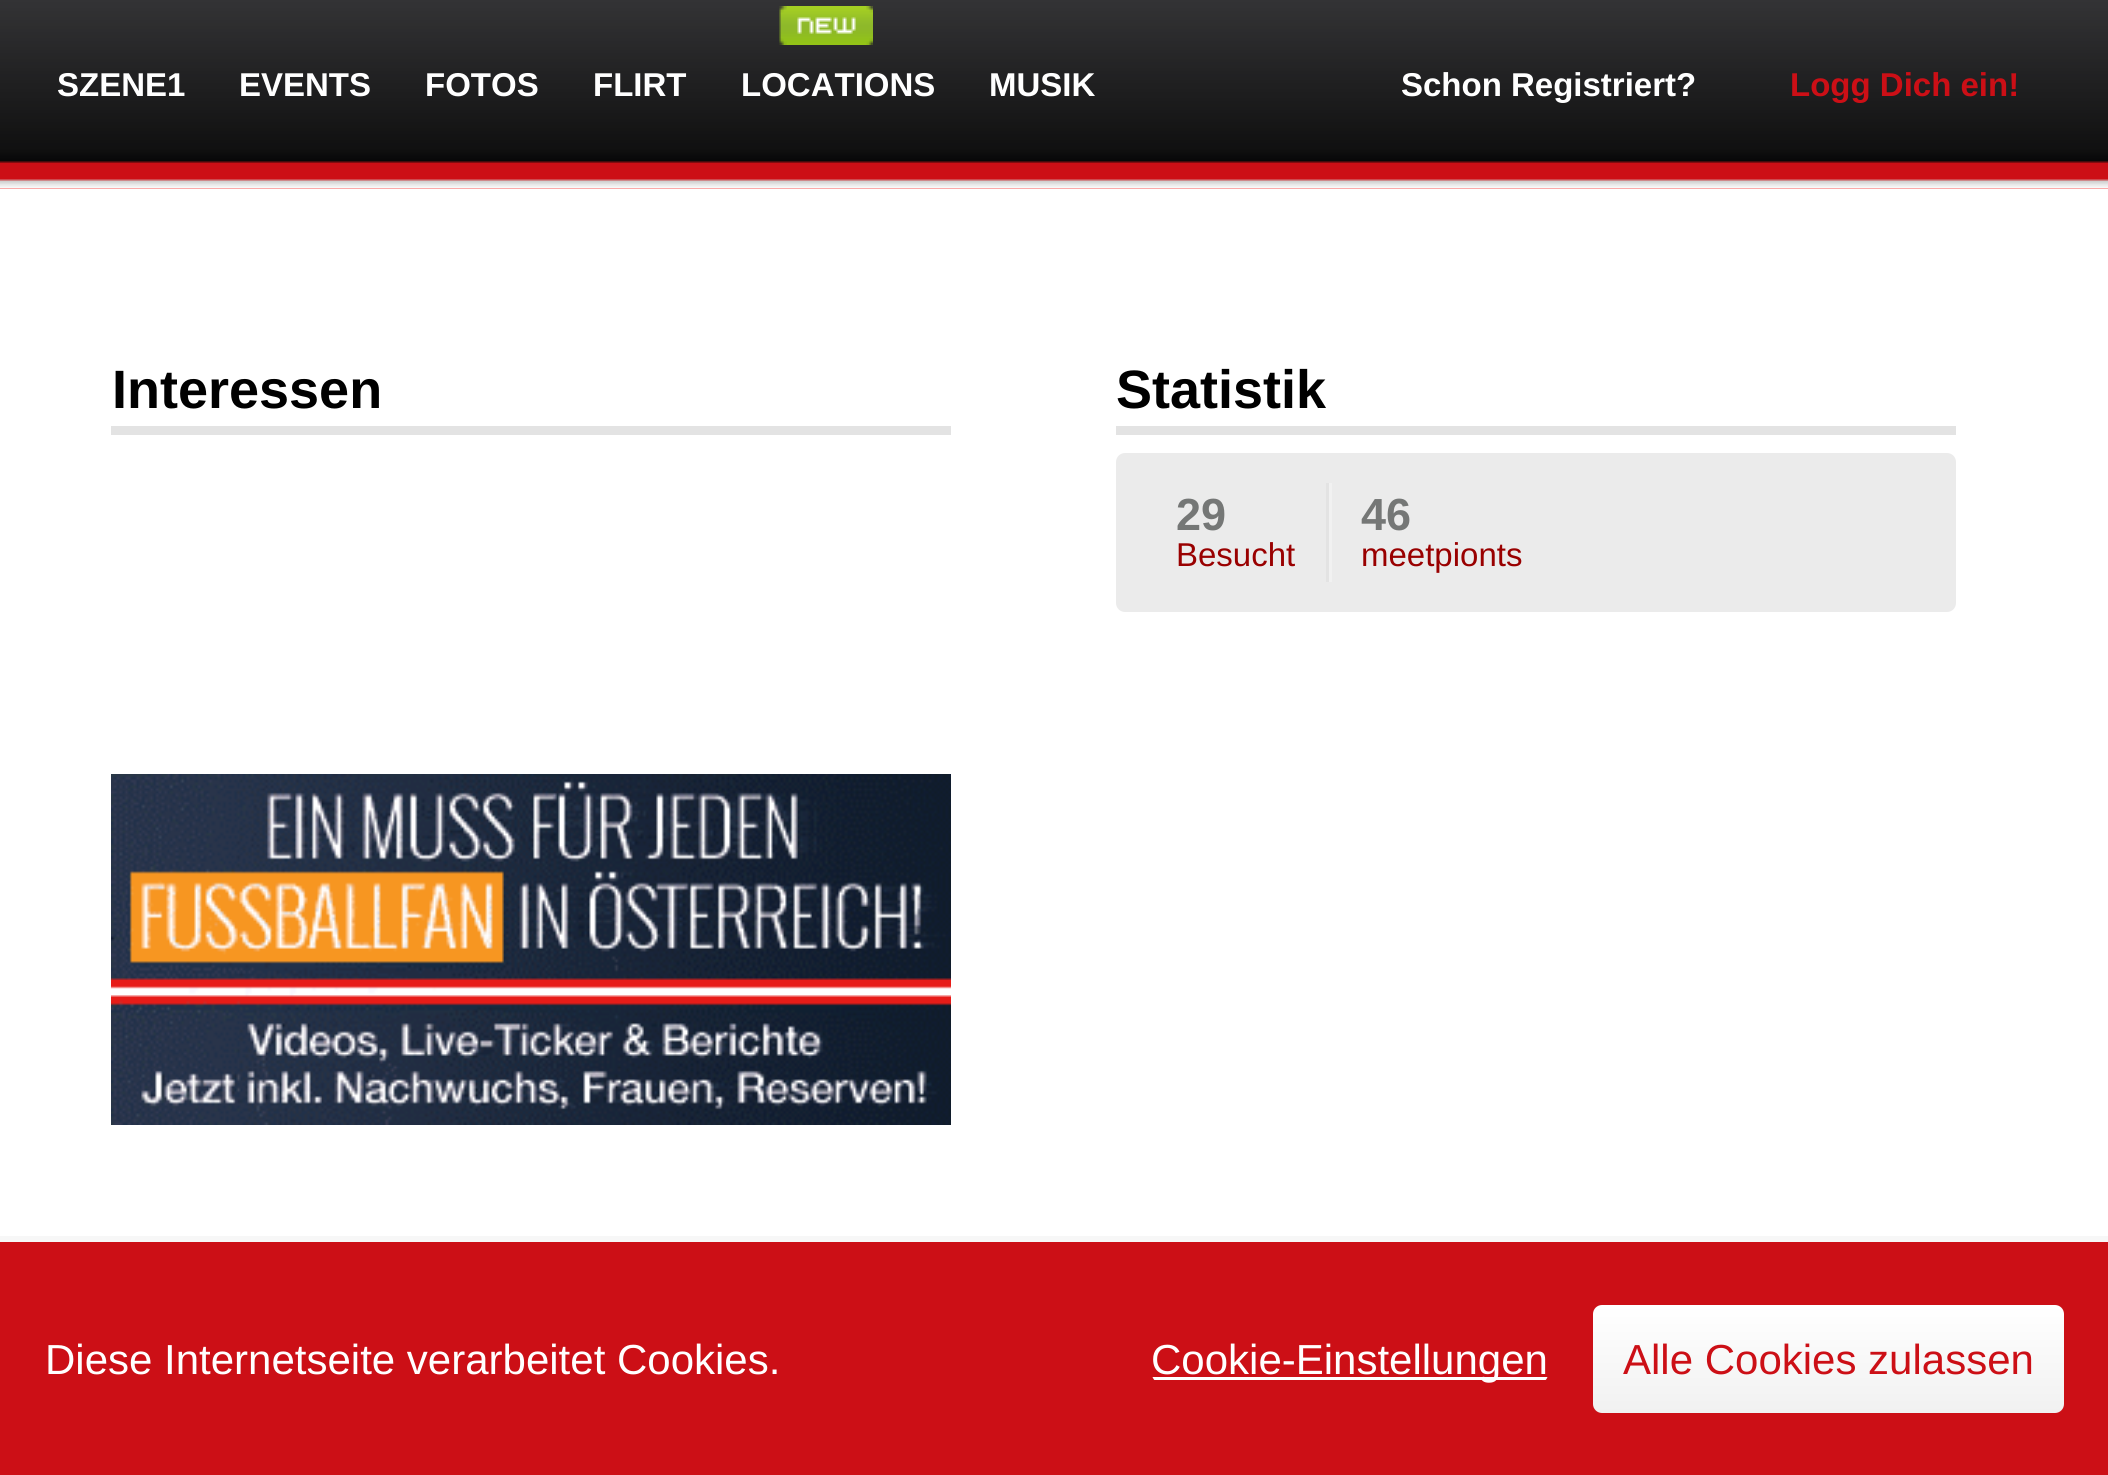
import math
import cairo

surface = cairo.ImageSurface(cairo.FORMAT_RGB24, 2108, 1475)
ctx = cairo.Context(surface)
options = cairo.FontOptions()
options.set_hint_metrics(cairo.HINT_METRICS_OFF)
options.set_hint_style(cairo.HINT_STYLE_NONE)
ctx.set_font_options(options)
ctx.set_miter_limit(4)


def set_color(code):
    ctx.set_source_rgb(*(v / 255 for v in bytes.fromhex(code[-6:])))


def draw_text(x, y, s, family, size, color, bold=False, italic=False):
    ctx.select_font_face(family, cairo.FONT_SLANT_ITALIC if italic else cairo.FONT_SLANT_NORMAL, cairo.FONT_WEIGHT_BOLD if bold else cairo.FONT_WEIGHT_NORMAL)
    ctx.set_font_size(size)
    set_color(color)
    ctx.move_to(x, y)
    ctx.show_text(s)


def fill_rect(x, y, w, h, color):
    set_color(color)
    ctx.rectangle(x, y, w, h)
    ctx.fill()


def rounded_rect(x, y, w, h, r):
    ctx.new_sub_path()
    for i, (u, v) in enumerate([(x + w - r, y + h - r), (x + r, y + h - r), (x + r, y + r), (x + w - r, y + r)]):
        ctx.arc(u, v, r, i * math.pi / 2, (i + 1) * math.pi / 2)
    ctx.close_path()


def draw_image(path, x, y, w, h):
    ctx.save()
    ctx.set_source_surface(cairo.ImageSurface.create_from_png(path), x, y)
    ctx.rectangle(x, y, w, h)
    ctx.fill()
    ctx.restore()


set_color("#ffffff")
ctx.paint()
draw_image("assets/img1.png", 0, 0, 2108, 189)
draw_text(57, 96, "SZENE1", "Liberation Sans", 33, "#ffffff", bold=True)
draw_text(239, 96, "EVENTS", "Liberation Sans", 33, "#ffffff", bold=True)
draw_text(425, 96, "FOTOS", "Liberation Sans", 33, "#ffffff", bold=True)
draw_text(593, 96, "FLIRT", "Liberation Sans", 33, "#ffffff", bold=True)
draw_image("assets/img2.png", 779, 6, 94, 39)
draw_text(741, 96, "LOCATIONS", "Liberation Sans", 33, "#ffffff", bold=True)
draw_text(989, 96, "MUSIK", "Liberation Sans", 33, "#ffffff", bold=True)
draw_text(1401, 96, "Schon Registriert?", "Liberation Sans", 33, "#ffffff", bold=True)
draw_text(1790, 96, "Logg Dich ein!", "Liberation Sans", 33, "#cc0f16", bold=True)
fill_rect(111, 426, 840, 9, "#e3e3e3")
draw_text(112, 408, "Interessen", "Liberation Sans", 54, "#000000", bold=True)
fill_rect(1116, 426, 840, 9, "#e3e3e3")
draw_text(1116, 408, "Statistik", "Liberation Sans", 54, "#000000", bold=True)
set_color("#ebebeb")
rounded_rect(1116, 453, 840, 159, 9)
ctx.fill()
fill_rect(1326, 483, 3, 99, "#e3e3e3")
draw_text(1176, 530, "29", "Liberation Sans", 45, "#757776", bold=True)
draw_text(1176, 566, "Besucht", "Liberation Sans", 33, "#990000")
fill_rect(1329, 483, 3, 99, "#f1f1f1")
draw_text(1361, 530, "46", "Liberation Sans", 45, "#757776", bold=True)
draw_text(1361, 566, "meetpionts", "Liberation Sans", 33, "#990000")
draw_image("assets/img3.png", 111, 774, 840, 351)
fill_rect(0, 1236, 2108, 6, "#f7f7f7")
fill_rect(0, 1242, 2108, 233, "#cc0f16")
draw_text(45, 1374, "Diese Internetseite verarbeitet Cookies.", "Liberation Sans", 42, "#ffffff")
ctx.save()
rounded_rect(1152, 1335, 396, 48, 9)
ctx.clip()
fill_rect(1152, 1377, 396, 3, "#ffffff")
ctx.restore()
draw_text(1151, 1374, "Cookie-Einstellungen", "Liberation Sans", 42, "#ffffff")
gradient = cairo.LinearGradient(1593, 1305, 1593, 1413)
gradient.add_color_stop_rgba(0, 1, 1, 1, 1)
gradient.add_color_stop_rgba(1, 0.945, 0.945, 0.945, 1)
ctx.set_source(gradient)
rounded_rect(1593, 1305, 471, 108, 9)
ctx.fill()
draw_text(1623, 1374, "Alle Cookies zulassen", "Liberation Sans", 42, "#cc0f16")
surface.write_to_png("output.png")
